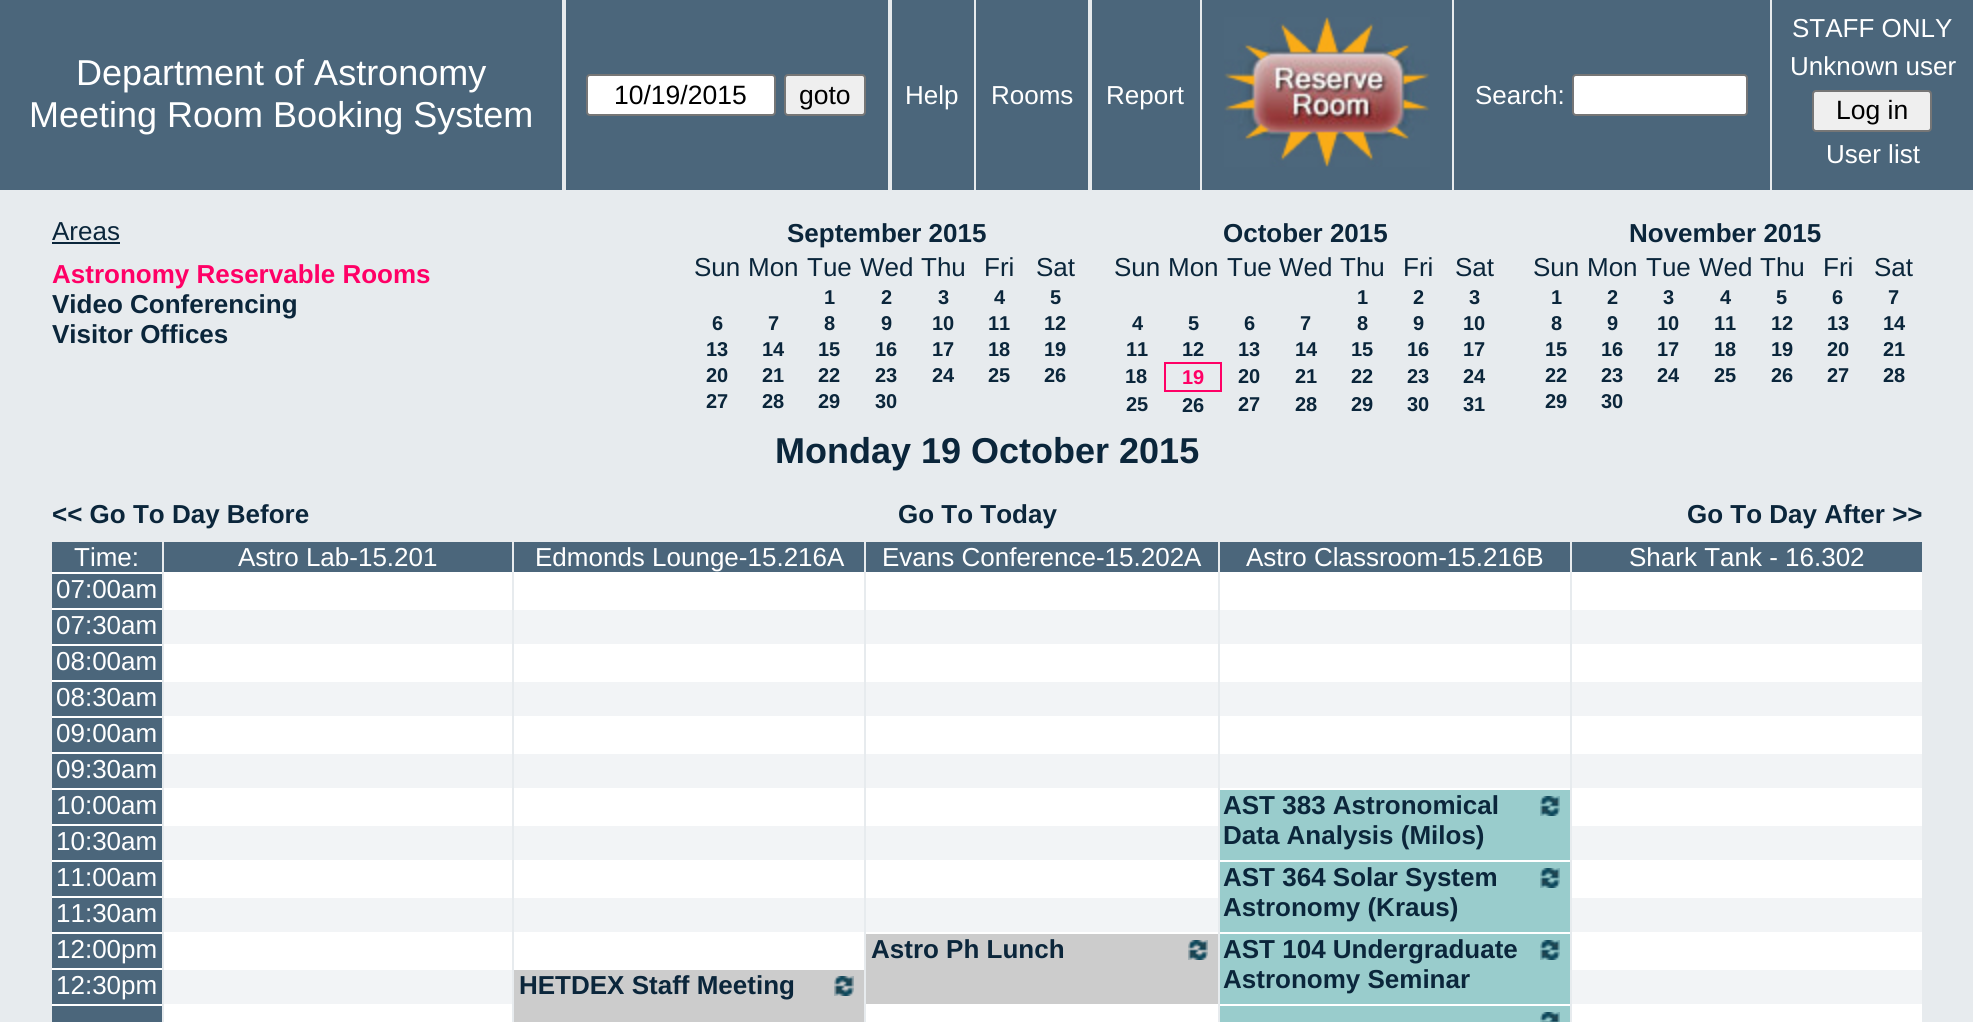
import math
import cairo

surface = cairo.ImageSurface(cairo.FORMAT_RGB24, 1973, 1022)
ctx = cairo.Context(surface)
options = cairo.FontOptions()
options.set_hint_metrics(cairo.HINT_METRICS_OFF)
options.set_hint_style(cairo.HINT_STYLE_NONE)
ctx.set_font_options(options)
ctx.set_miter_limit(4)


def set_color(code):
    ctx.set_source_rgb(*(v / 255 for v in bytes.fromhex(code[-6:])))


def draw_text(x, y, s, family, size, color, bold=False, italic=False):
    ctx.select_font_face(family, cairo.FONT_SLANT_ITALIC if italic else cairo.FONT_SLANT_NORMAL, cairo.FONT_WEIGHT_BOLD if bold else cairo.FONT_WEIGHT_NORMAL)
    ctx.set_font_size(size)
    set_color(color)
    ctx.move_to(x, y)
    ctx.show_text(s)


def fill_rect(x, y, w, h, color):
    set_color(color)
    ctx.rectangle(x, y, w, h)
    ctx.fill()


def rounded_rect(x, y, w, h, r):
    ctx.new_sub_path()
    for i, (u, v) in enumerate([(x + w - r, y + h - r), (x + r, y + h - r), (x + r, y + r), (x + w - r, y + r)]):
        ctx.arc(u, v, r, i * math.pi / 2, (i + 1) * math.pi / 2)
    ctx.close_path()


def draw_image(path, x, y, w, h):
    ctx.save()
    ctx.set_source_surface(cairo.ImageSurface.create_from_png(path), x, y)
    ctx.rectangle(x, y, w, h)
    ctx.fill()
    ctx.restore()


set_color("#e7ebee")
ctx.paint()
fill_rect(0, 0, 562, 190, "#4b667b")
draw_text(76, 85, "Department of Astronomy", "Liberation Sans", 36, "#ffffff")
draw_text(29, 127, "Meeting Room Booking System", "Liberation Sans", 36, "#ffffff")
fill_rect(566, 0, 322, 190, "#4b667b")
set_color("#ffffff")
rounded_rect(587, 75, 188, 40, 3)
ctx.fill_preserve()
set_color("#767676")
ctx.stroke()
draw_text(614, 104, "10/19/2015", "Liberation Sans", 26.5, "#000000")
set_color("#efefef")
rounded_rect(785, 75, 80, 40, 3)
ctx.fill_preserve()
set_color("#767676")
ctx.stroke()
draw_text(799, 104, "goto", "Liberation Sans", 26.5, "#000000")
fill_rect(892, 0, 82, 190, "#4b667b")
draw_text(905, 104, "Help", "Liberation Sans", 26, "#ffffff")
fill_rect(976, 0, 112, 190, "#4b667b")
draw_text(991, 104, "Rooms", "Liberation Sans", 26, "#ffffff")
fill_rect(1092, 0, 108, 190, "#4b667b")
draw_text(1106, 104, "Report", "Liberation Sans", 26, "#ffffff")
fill_rect(1202, 0, 250, 190, "#4b667b")
draw_image("assets/img1.png", 1224, 17, 206, 150)
fill_rect(1454, 0, 316, 190, "#4b667b")
draw_text(1475, 104, "Search:", "Liberation Sans", 26, "#ffffff")
rounded_rect(1573, 75, 174, 40, 3)
ctx.fill_preserve()
set_color("#767676")
ctx.stroke()
fill_rect(1772, 0, 201, 190, "#4b667b")
draw_text(1792, 37, "STAFF ONLY", "Liberation Sans", 26, "#ffffff")
draw_text(1790, 75, "Unknown user", "Liberation Sans", 26, "#ffffff")
set_color("#efefef")
rounded_rect(1813, 91, 118, 40, 3)
ctx.fill_preserve()
set_color("#767676")
ctx.stroke()
draw_text(1836, 119, "Log in", "Liberation Sans", 26.5, "#000000")
draw_text(1826, 163, "User list", "Liberation Sans", 26, "#ffffff")
draw_text(52, 240, "Areas", "Liberation Sans", 26, "#0b263b")
fill_rect(52, 242, 68, 2, "#0b263b")
draw_text(52, 283, "Astronomy Reservable Rooms", "Liberation Sans", 26, "#ff0066", bold=True)
draw_text(52, 313, "Video Conferencing", "Liberation Sans", 26, "#0b263b", bold=True)
draw_text(52, 343, "Visitor Offices", "Liberation Sans", 26, "#0b263b", bold=True)
draw_text(787, 242, "September 2015", "Liberation Sans", 26, "#0b263b", bold=True)
draw_text(694, 276, "Sun", "Liberation Sans", 26, "#0b263b")
draw_text(748, 276, "Mon", "Liberation Sans", 26, "#0b263b")
draw_text(807, 276, "Tue", "Liberation Sans", 26, "#0b263b")
draw_text(860, 276, "Wed", "Liberation Sans", 26, "#0b263b")
draw_text(921, 276, "Thu", "Liberation Sans", 26, "#0b263b")
draw_text(984, 276, "Fri", "Liberation Sans", 26, "#0b263b")
draw_text(1036, 276, "Sat", "Liberation Sans", 26, "#0b263b")
draw_text(824, 304, "1", "Liberation Sans", 20, "#0b263b", bold=True)
draw_text(881, 304, "2", "Liberation Sans", 20, "#0b263b", bold=True)
draw_text(938, 304, "3", "Liberation Sans", 20, "#0b263b", bold=True)
draw_text(994, 304, "4", "Liberation Sans", 20, "#0b263b", bold=True)
draw_text(1050, 304, "5", "Liberation Sans", 20, "#0b263b", bold=True)
draw_text(712, 330, "6", "Liberation Sans", 20, "#0b263b", bold=True)
draw_text(768, 330, "7", "Liberation Sans", 20, "#0b263b", bold=True)
draw_text(824, 330, "8", "Liberation Sans", 20, "#0b263b", bold=True)
draw_text(881, 330, "9", "Liberation Sans", 20, "#0b263b", bold=True)
draw_text(932, 330, "10", "Liberation Sans", 20, "#0b263b", bold=True)
draw_text(988, 330, "11", "Liberation Sans", 20, "#0b263b", bold=True)
draw_text(1044, 330, "12", "Liberation Sans", 20, "#0b263b", bold=True)
draw_text(706, 356, "13", "Liberation Sans", 20, "#0b263b", bold=True)
draw_text(762, 356, "14", "Liberation Sans", 20, "#0b263b", bold=True)
draw_text(818, 356, "15", "Liberation Sans", 20, "#0b263b", bold=True)
draw_text(875, 356, "16", "Liberation Sans", 20, "#0b263b", bold=True)
draw_text(932, 356, "17", "Liberation Sans", 20, "#0b263b", bold=True)
draw_text(988, 356, "18", "Liberation Sans", 20, "#0b263b", bold=True)
draw_text(1044, 356, "19", "Liberation Sans", 20, "#0b263b", bold=True)
draw_text(706, 382, "20", "Liberation Sans", 20, "#0b263b", bold=True)
draw_text(762, 382, "21", "Liberation Sans", 20, "#0b263b", bold=True)
draw_text(818, 382, "22", "Liberation Sans", 20, "#0b263b", bold=True)
draw_text(875, 382, "23", "Liberation Sans", 20, "#0b263b", bold=True)
draw_text(932, 382, "24", "Liberation Sans", 20, "#0b263b", bold=True)
draw_text(988, 382, "25", "Liberation Sans", 20, "#0b263b", bold=True)
draw_text(1044, 382, "26", "Liberation Sans", 20, "#0b263b", bold=True)
draw_text(706, 408, "27", "Liberation Sans", 20, "#0b263b", bold=True)
draw_text(762, 408, "28", "Liberation Sans", 20, "#0b263b", bold=True)
draw_text(818, 408, "29", "Liberation Sans", 20, "#0b263b", bold=True)
draw_text(875, 408, "30", "Liberation Sans", 20, "#0b263b", bold=True)
draw_text(1223, 242, "October 2015", "Liberation Sans", 26, "#0b263b", bold=True)
draw_text(1114, 276, "Sun", "Liberation Sans", 26, "#0b263b")
draw_text(1168, 276, "Mon", "Liberation Sans", 26, "#0b263b")
draw_text(1227, 276, "Tue", "Liberation Sans", 26, "#0b263b")
draw_text(1279, 276, "Wed", "Liberation Sans", 26, "#0b263b")
draw_text(1340, 276, "Thu", "Liberation Sans", 26, "#0b263b")
draw_text(1403, 276, "Fri", "Liberation Sans", 26, "#0b263b")
draw_text(1455, 276, "Sat", "Liberation Sans", 26, "#0b263b")
draw_text(1357, 304, "1", "Liberation Sans", 20, "#0b263b", bold=True)
draw_text(1413, 304, "2", "Liberation Sans", 20, "#0b263b", bold=True)
draw_text(1469, 304, "3", "Liberation Sans", 20, "#0b263b", bold=True)
draw_text(1132, 330, "4", "Liberation Sans", 20, "#0b263b", bold=True)
draw_text(1188, 330, "5", "Liberation Sans", 20, "#0b263b", bold=True)
draw_text(1244, 330, "6", "Liberation Sans", 20, "#0b263b", bold=True)
draw_text(1300, 330, "7", "Liberation Sans", 20, "#0b263b", bold=True)
draw_text(1357, 330, "8", "Liberation Sans", 20, "#0b263b", bold=True)
draw_text(1413, 330, "9", "Liberation Sans", 20, "#0b263b", bold=True)
draw_text(1463, 330, "10", "Liberation Sans", 20, "#0b263b", bold=True)
draw_text(1126, 356, "11", "Liberation Sans", 20, "#0b263b", bold=True)
draw_text(1182, 356, "12", "Liberation Sans", 20, "#0b263b", bold=True)
draw_text(1238, 356, "13", "Liberation Sans", 20, "#0b263b", bold=True)
draw_text(1295, 356, "14", "Liberation Sans", 20, "#0b263b", bold=True)
draw_text(1351, 356, "15", "Liberation Sans", 20, "#0b263b", bold=True)
draw_text(1407, 356, "16", "Liberation Sans", 20, "#0b263b", bold=True)
draw_text(1463, 356, "17", "Liberation Sans", 20, "#0b263b", bold=True)
draw_text(1125, 383, "18", "Liberation Sans", 20, "#0b263b", bold=True)
fill_rect(1164, 362, 58, 2, "#ff0066")
fill_rect(1220, 362, 2, 30, "#ff0066")
fill_rect(1164, 390, 58, 2, "#ff0066")
fill_rect(1164, 362, 2, 30, "#ff0066")
draw_text(1182, 384, "19", "Liberation Sans", 20, "#ff0066", bold=True)
draw_text(1238, 383, "20", "Liberation Sans", 20, "#0b263b", bold=True)
draw_text(1295, 383, "21", "Liberation Sans", 20, "#0b263b", bold=True)
draw_text(1351, 383, "22", "Liberation Sans", 20, "#0b263b", bold=True)
draw_text(1407, 383, "23", "Liberation Sans", 20, "#0b263b", bold=True)
draw_text(1463, 383, "24", "Liberation Sans", 20, "#0b263b", bold=True)
draw_text(1126, 411, "25", "Liberation Sans", 20, "#0b263b", bold=True)
draw_text(1182, 412, "26", "Liberation Sans", 20, "#0b263b", bold=True)
draw_text(1238, 411, "27", "Liberation Sans", 20, "#0b263b", bold=True)
draw_text(1295, 411, "28", "Liberation Sans", 20, "#0b263b", bold=True)
draw_text(1351, 411, "29", "Liberation Sans", 20, "#0b263b", bold=True)
draw_text(1407, 411, "30", "Liberation Sans", 20, "#0b263b", bold=True)
draw_text(1463, 411, "31", "Liberation Sans", 20, "#0b263b", bold=True)
draw_text(1629, 242, "November 2015", "Liberation Sans", 26, "#0b263b", bold=True)
draw_text(1533, 276, "Sun", "Liberation Sans", 26, "#0b263b")
draw_text(1587, 276, "Mon", "Liberation Sans", 26, "#0b263b")
draw_text(1646, 276, "Tue", "Liberation Sans", 26, "#0b263b")
draw_text(1699, 276, "Wed", "Liberation Sans", 26, "#0b263b")
draw_text(1760, 276, "Thu", "Liberation Sans", 26, "#0b263b")
draw_text(1823, 276, "Fri", "Liberation Sans", 26, "#0b263b")
draw_text(1874, 276, "Sat", "Liberation Sans", 26, "#0b263b")
draw_text(1551, 304, "1", "Liberation Sans", 20, "#0b263b", bold=True)
draw_text(1607, 304, "2", "Liberation Sans", 20, "#0b263b", bold=True)
draw_text(1663, 304, "3", "Liberation Sans", 20, "#0b263b", bold=True)
draw_text(1720, 304, "4", "Liberation Sans", 20, "#0b263b", bold=True)
draw_text(1776, 304, "5", "Liberation Sans", 20, "#0b263b", bold=True)
draw_text(1832, 304, "6", "Liberation Sans", 20, "#0b263b", bold=True)
draw_text(1888, 304, "7", "Liberation Sans", 20, "#0b263b", bold=True)
draw_text(1551, 330, "8", "Liberation Sans", 20, "#0b263b", bold=True)
draw_text(1607, 330, "9", "Liberation Sans", 20, "#0b263b", bold=True)
draw_text(1657, 330, "10", "Liberation Sans", 20, "#0b263b", bold=True)
draw_text(1714, 330, "11", "Liberation Sans", 20, "#0b263b", bold=True)
draw_text(1771, 330, "12", "Liberation Sans", 20, "#0b263b", bold=True)
draw_text(1827, 330, "13", "Liberation Sans", 20, "#0b263b", bold=True)
draw_text(1883, 330, "14", "Liberation Sans", 20, "#0b263b", bold=True)
draw_text(1545, 356, "15", "Liberation Sans", 20, "#0b263b", bold=True)
draw_text(1601, 356, "16", "Liberation Sans", 20, "#0b263b", bold=True)
draw_text(1657, 356, "17", "Liberation Sans", 20, "#0b263b", bold=True)
draw_text(1714, 356, "18", "Liberation Sans", 20, "#0b263b", bold=True)
draw_text(1771, 356, "19", "Liberation Sans", 20, "#0b263b", bold=True)
draw_text(1827, 356, "20", "Liberation Sans", 20, "#0b263b", bold=True)
draw_text(1883, 356, "21", "Liberation Sans", 20, "#0b263b", bold=True)
draw_text(1545, 382, "22", "Liberation Sans", 20, "#0b263b", bold=True)
draw_text(1601, 382, "23", "Liberation Sans", 20, "#0b263b", bold=True)
draw_text(1657, 382, "24", "Liberation Sans", 20, "#0b263b", bold=True)
draw_text(1714, 382, "25", "Liberation Sans", 20, "#0b263b", bold=True)
draw_text(1771, 382, "26", "Liberation Sans", 20, "#0b263b", bold=True)
draw_text(1827, 382, "27", "Liberation Sans", 20, "#0b263b", bold=True)
draw_text(1883, 382, "28", "Liberation Sans", 20, "#0b263b", bold=True)
draw_text(1545, 408, "29", "Liberation Sans", 20, "#0b263b", bold=True)
draw_text(1601, 408, "30", "Liberation Sans", 20, "#0b263b", bold=True)
draw_text(775, 463, "Monday 19 October 2015", "Liberation Sans", 36, "#0b263b", bold=True)
draw_text(52, 523, "<< Go To Day Before", "Liberation Sans", 26, "#0b263b", bold=True)
draw_text(898, 523, "Go To Today", "Liberation Sans", 26, "#0b263b", bold=True)
draw_text(1687, 523, "Go To Day After >>", "Liberation Sans", 26, "#0b263b", bold=True)
fill_rect(52, 542, 110, 30, "#4b667b")
draw_text(74, 566, "Time:", "Liberation Sans", 26, "#ffffff")
fill_rect(164, 542, 348, 30, "#4b667b")
draw_text(238, 566, "Astro Lab-15.201", "Liberation Sans", 26, "#ffffff")
fill_rect(514, 542, 350, 30, "#4b667b")
draw_text(535, 566, "Edmonds Lounge-15.216A", "Liberation Sans", 26, "#ffffff")
fill_rect(866, 542, 352, 30, "#4b667b")
draw_text(882, 566, "Evans Conference-15.202A", "Liberation Sans", 26, "#ffffff")
fill_rect(1220, 542, 350, 30, "#4b667b")
draw_text(1246, 566, "Astro Classroom-15.216B", "Liberation Sans", 26, "#ffffff")
fill_rect(1572, 542, 350, 30, "#4b667b")
draw_text(1629, 566, "Shark Tank - 16.302", "Liberation Sans", 26, "#ffffff")
fill_rect(52, 574, 110, 34, "#4b667b")
fill_rect(52, 572, 110, 2, "#ffffff")
draw_text(56, 598, "07:00am", "Liberation Sans", 26, "#ffffff")
fill_rect(164, 572, 348, 36, "#ffffff")
fill_rect(514, 572, 350, 36, "#ffffff")
fill_rect(866, 572, 352, 36, "#ffffff")
fill_rect(1220, 572, 350, 36, "#ffffff")
fill_rect(1572, 572, 350, 36, "#ffffff")
fill_rect(52, 610, 110, 34, "#4b667b")
fill_rect(52, 608, 1870, 2, "#ffffff")
draw_text(56, 634, "07:30am", "Liberation Sans", 26, "#ffffff")
fill_rect(164, 610, 348, 34, "#f2f4f6")
fill_rect(162, 608, 2, 2, "#e7ebee")
fill_rect(514, 610, 350, 34, "#f2f4f6")
fill_rect(512, 608, 2, 2, "#e7ebee")
fill_rect(866, 610, 352, 34, "#f2f4f6")
fill_rect(864, 608, 2, 2, "#e7ebee")
fill_rect(1220, 610, 350, 34, "#f2f4f6")
fill_rect(1218, 608, 2, 2, "#e7ebee")
fill_rect(1572, 610, 350, 34, "#f2f4f6")
fill_rect(1570, 608, 2, 2, "#e7ebee")
fill_rect(52, 646, 110, 34, "#4b667b")
fill_rect(52, 644, 110, 2, "#ffffff")
draw_text(56, 670, "08:00am", "Liberation Sans", 26, "#ffffff")
fill_rect(164, 644, 348, 36, "#ffffff")
fill_rect(514, 644, 350, 36, "#ffffff")
fill_rect(866, 644, 352, 36, "#ffffff")
fill_rect(1220, 644, 350, 36, "#ffffff")
fill_rect(1572, 644, 350, 36, "#ffffff")
fill_rect(52, 682, 110, 34, "#4b667b")
fill_rect(52, 680, 1870, 2, "#ffffff")
draw_text(56, 706, "08:30am", "Liberation Sans", 26, "#ffffff")
fill_rect(164, 682, 348, 34, "#f2f4f6")
fill_rect(162, 680, 2, 2, "#e7ebee")
fill_rect(514, 682, 350, 34, "#f2f4f6")
fill_rect(512, 680, 2, 2, "#e7ebee")
fill_rect(866, 682, 352, 34, "#f2f4f6")
fill_rect(864, 680, 2, 2, "#e7ebee")
fill_rect(1220, 682, 350, 34, "#f2f4f6")
fill_rect(1218, 680, 2, 2, "#e7ebee")
fill_rect(1572, 682, 350, 34, "#f2f4f6")
fill_rect(1570, 680, 2, 2, "#e7ebee")
fill_rect(52, 718, 110, 34, "#4b667b")
fill_rect(52, 716, 110, 2, "#ffffff")
draw_text(56, 742, "09:00am", "Liberation Sans", 26, "#ffffff")
fill_rect(164, 716, 348, 36, "#ffffff")
fill_rect(514, 716, 350, 36, "#ffffff")
fill_rect(866, 716, 352, 36, "#ffffff")
fill_rect(1220, 716, 350, 36, "#ffffff")
fill_rect(1572, 716, 350, 36, "#ffffff")
fill_rect(52, 754, 110, 34, "#4b667b")
fill_rect(52, 752, 1870, 2, "#ffffff")
draw_text(56, 778, "09:30am", "Liberation Sans", 26, "#ffffff")
fill_rect(164, 754, 348, 34, "#f2f4f6")
fill_rect(162, 752, 2, 2, "#e7ebee")
fill_rect(514, 754, 350, 34, "#f2f4f6")
fill_rect(512, 752, 2, 2, "#e7ebee")
fill_rect(866, 754, 352, 34, "#f2f4f6")
fill_rect(864, 752, 2, 2, "#e7ebee")
fill_rect(1220, 754, 350, 34, "#f2f4f6")
fill_rect(1218, 752, 2, 2, "#e7ebee")
fill_rect(1572, 754, 350, 34, "#f2f4f6")
fill_rect(1570, 752, 2, 2, "#e7ebee")
fill_rect(52, 790, 110, 34, "#4b667b")
fill_rect(52, 788, 110, 2, "#ffffff")
draw_text(56, 814, "10:00am", "Liberation Sans", 26, "#ffffff")
fill_rect(164, 788, 348, 36, "#ffffff")
fill_rect(514, 788, 350, 36, "#ffffff")
fill_rect(866, 788, 352, 36, "#ffffff")
fill_rect(1220, 790, 350, 70, "#99cccc")
fill_rect(1218, 788, 352, 2, "#ffffff")
fill_rect(1218, 788, 2, 2, "#e7ebee")
draw_text(1223, 814, "AST 383 Astronomical", "Liberation Sans", 26, "#0b263b", bold=True)
draw_image("assets/img2.png", 1540, 796, 20, 20)
draw_text(1223, 844, "Data Analysis (Milos)", "Liberation Sans", 26, "#0b263b", bold=True)
fill_rect(1572, 788, 350, 36, "#ffffff")
fill_rect(52, 826, 110, 34, "#4b667b")
fill_rect(52, 824, 1166, 2, "#ffffff")
draw_text(56, 850, "10:30am", "Liberation Sans", 26, "#ffffff")
fill_rect(164, 826, 348, 34, "#f2f4f6")
fill_rect(162, 824, 2, 2, "#e7ebee")
fill_rect(514, 826, 350, 34, "#f2f4f6")
fill_rect(512, 824, 2, 2, "#e7ebee")
fill_rect(866, 826, 352, 34, "#f2f4f6")
fill_rect(864, 824, 2, 2, "#e7ebee")
fill_rect(1572, 826, 350, 34, "#f2f4f6")
fill_rect(1570, 824, 352, 2, "#ffffff")
fill_rect(1570, 824, 2, 2, "#e7ebee")
fill_rect(52, 862, 110, 34, "#4b667b")
fill_rect(52, 860, 110, 2, "#ffffff")
draw_text(56, 886, "11:00am", "Liberation Sans", 26, "#ffffff")
fill_rect(164, 860, 348, 36, "#ffffff")
fill_rect(514, 860, 350, 36, "#ffffff")
fill_rect(866, 860, 352, 36, "#ffffff")
fill_rect(1220, 862, 350, 70, "#99cccc")
fill_rect(1218, 860, 352, 2, "#ffffff")
fill_rect(1218, 860, 2, 2, "#e7ebee")
draw_text(1223, 886, "AST 364 Solar System", "Liberation Sans", 26, "#0b263b", bold=True)
draw_image("assets/img2.png", 1540, 868, 20, 20)
draw_text(1223, 916, "Astronomy (Kraus)", "Liberation Sans", 26, "#0b263b", bold=True)
fill_rect(1572, 860, 350, 36, "#ffffff")
fill_rect(52, 898, 110, 34, "#4b667b")
fill_rect(52, 896, 1166, 2, "#ffffff")
draw_text(56, 922, "11:30am", "Liberation Sans", 26, "#ffffff")
fill_rect(164, 898, 348, 34, "#f2f4f6")
fill_rect(162, 896, 2, 2, "#e7ebee")
fill_rect(514, 898, 350, 34, "#f2f4f6")
fill_rect(512, 896, 2, 2, "#e7ebee")
fill_rect(866, 898, 352, 34, "#f2f4f6")
fill_rect(864, 896, 2, 2, "#e7ebee")
fill_rect(1572, 898, 350, 34, "#f2f4f6")
fill_rect(1570, 896, 352, 2, "#ffffff")
fill_rect(1570, 896, 2, 2, "#e7ebee")
fill_rect(52, 934, 110, 34, "#4b667b")
fill_rect(52, 932, 110, 2, "#ffffff")
draw_text(56, 958, "12:00pm", "Liberation Sans", 26, "#ffffff")
fill_rect(164, 932, 348, 36, "#ffffff")
fill_rect(514, 932, 350, 36, "#ffffff")
fill_rect(866, 934, 352, 70, "#cccccc")
fill_rect(864, 932, 706, 2, "#ffffff")
fill_rect(864, 932, 2, 2, "#e7ebee")
draw_text(871, 958, "Astro Ph Lunch", "Liberation Sans", 26, "#0b263b", bold=True)
draw_image("assets/img3.png", 1188, 940, 20, 20)
fill_rect(1220, 934, 350, 70, "#99cccc")
fill_rect(1218, 932, 2, 2, "#e7ebee")
draw_text(1223, 958, "AST 104 Undergraduate", "Liberation Sans", 26, "#0b263b", bold=True)
draw_image("assets/img2.png", 1540, 940, 20, 20)
draw_text(1223, 988, "Astronomy Seminar", "Liberation Sans", 26, "#0b263b", bold=True)
fill_rect(1572, 932, 350, 36, "#ffffff")
fill_rect(52, 970, 110, 34, "#4b667b")
fill_rect(52, 968, 812, 2, "#ffffff")
draw_text(56, 994, "12:30pm", "Liberation Sans", 26, "#ffffff")
fill_rect(164, 970, 348, 34, "#f2f4f6")
fill_rect(162, 968, 2, 2, "#e7ebee")
fill_rect(514, 970, 350, 52, "#cccccc")
fill_rect(512, 968, 2, 2, "#e7ebee")
draw_text(519, 994, "HETDEX Staff Meeting", "Liberation Sans", 26, "#0b263b", bold=True)
draw_image("assets/img3.png", 834, 976, 20, 20)
fill_rect(1572, 970, 350, 34, "#f2f4f6")
fill_rect(1570, 968, 352, 2, "#ffffff")
fill_rect(1570, 968, 2, 2, "#e7ebee")
fill_rect(52, 1006, 110, 16, "#4b667b")
fill_rect(52, 1004, 110, 2, "#ffffff")
fill_rect(164, 1004, 348, 18, "#ffffff")
fill_rect(866, 1004, 352, 18, "#ffffff")
fill_rect(1220, 1006, 350, 16, "#99cccc")
fill_rect(1218, 1004, 352, 2, "#ffffff")
fill_rect(1218, 1004, 2, 2, "#e7ebee")
draw_image("assets/img4.png", 1540, 1012, 20, 10)
fill_rect(1572, 1004, 350, 18, "#ffffff")
surface.write_to_png("output.png")
